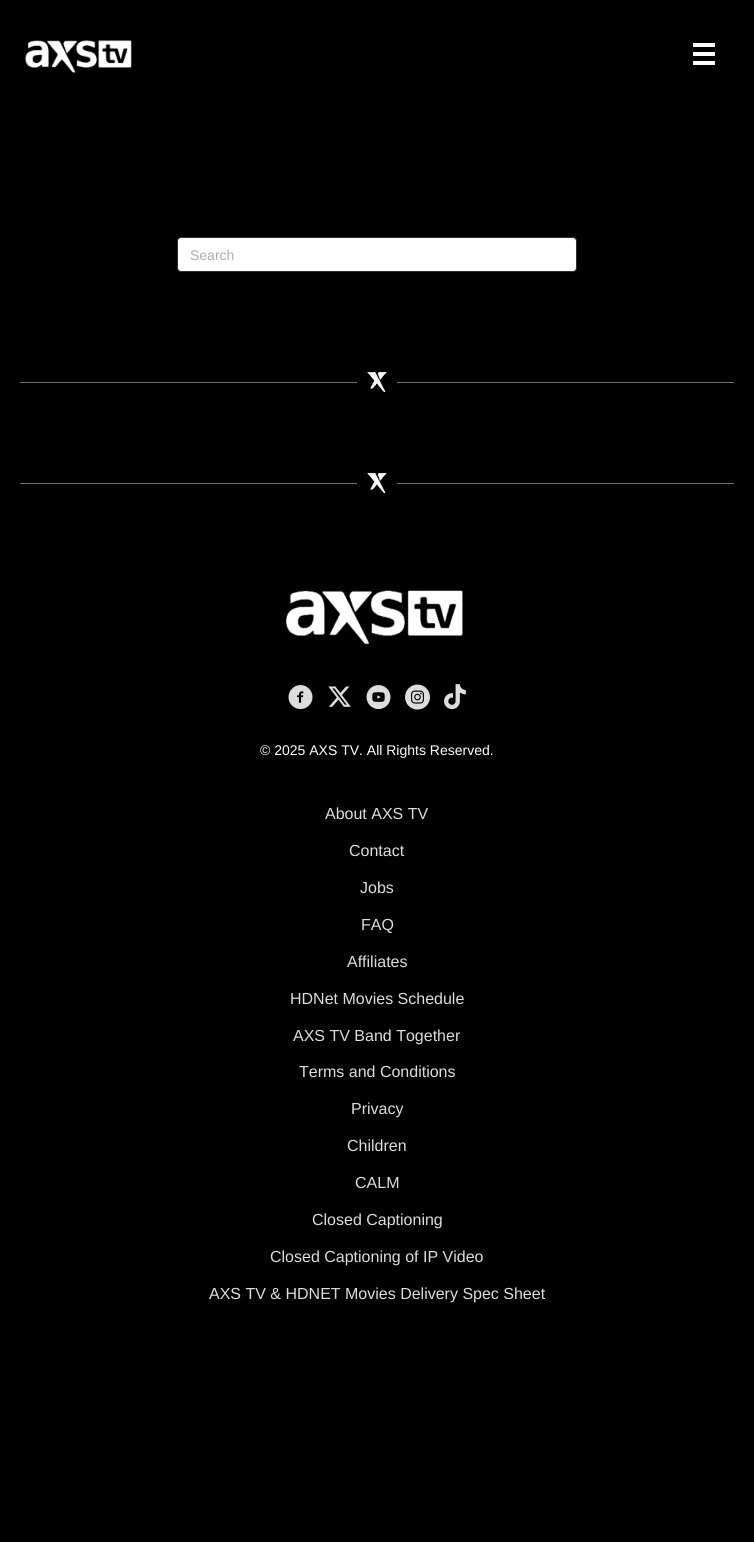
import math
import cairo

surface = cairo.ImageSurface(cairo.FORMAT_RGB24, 754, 1542)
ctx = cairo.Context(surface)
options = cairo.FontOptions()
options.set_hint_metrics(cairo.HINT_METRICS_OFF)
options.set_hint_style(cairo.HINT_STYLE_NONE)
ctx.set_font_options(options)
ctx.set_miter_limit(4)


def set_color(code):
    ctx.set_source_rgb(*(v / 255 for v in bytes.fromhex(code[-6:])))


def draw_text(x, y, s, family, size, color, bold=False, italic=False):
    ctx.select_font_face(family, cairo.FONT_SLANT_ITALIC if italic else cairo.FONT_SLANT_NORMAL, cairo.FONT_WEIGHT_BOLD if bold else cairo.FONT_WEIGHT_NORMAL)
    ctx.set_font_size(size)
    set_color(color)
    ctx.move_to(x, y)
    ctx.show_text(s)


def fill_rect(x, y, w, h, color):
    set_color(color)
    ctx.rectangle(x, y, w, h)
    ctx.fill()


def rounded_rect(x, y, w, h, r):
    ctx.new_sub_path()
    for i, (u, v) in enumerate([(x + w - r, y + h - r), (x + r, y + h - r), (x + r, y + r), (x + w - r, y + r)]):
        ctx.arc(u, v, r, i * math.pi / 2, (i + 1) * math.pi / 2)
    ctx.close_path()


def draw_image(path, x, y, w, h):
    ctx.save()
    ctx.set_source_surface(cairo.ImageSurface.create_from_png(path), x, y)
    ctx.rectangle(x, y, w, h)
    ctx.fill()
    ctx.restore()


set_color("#000000")
ctx.paint()
draw_image("assets/img1.png", 25, 40, 107, 33)
fill_rect(693, 43, 22, 4, "#ffffff")
fill_rect(693, 52, 22, 4, "#ffffff")
fill_rect(693, 61, 22, 4, "#ffffff")
rounded_rect(177.5, 237.5, 399, 34, 3.5)
ctx.fill_preserve()
set_color("#303030")
ctx.set_line_width(1)
ctx.stroke()
draw_text(190, 260, "Search", "Liberation Sans", 14, "#adadad")
fill_rect(20, 382, 337, 1, "#727272")
draw_image("assets/img2.png", 367, 372, 20, 20)
fill_rect(397, 382, 337, 1, "#727272")
fill_rect(20, 483, 337, 1, "#727272")
draw_image("assets/img2.png", 367, 473, 20, 20)
fill_rect(397, 483, 337, 1, "#727272")
draw_image("assets/img3.png", 285, 590, 178, 55)
draw_image("assets/img4.png", 288, 685, 25, 25)
draw_image("assets/img5.png", 328, 686, 23, 21)
draw_image("assets/img6.png", 366, 685, 25, 25)
draw_image("assets/img7.png", 405, 684, 25, 26)
draw_image("assets/img8.png", 444, 684, 22, 26)
draw_text(260, 755, "© 2025 AXS TV. All Rights Reserved.", "Liberation Sans", 14, "#ffffff")
draw_text(325, 819, "About AXS TV", "Liberation Sans", 16, "#dddddd")
draw_text(349, 856, "Contact", "Liberation Sans", 16, "#dddddd")
draw_text(360, 893, "Jobs", "Liberation Sans", 16, "#dddddd")
draw_text(361, 930, "FAQ", "Liberation Sans", 16, "#dddddd")
draw_text(347, 967, "Affiliates", "Liberation Sans", 16, "#dddddd")
draw_text(290, 1004, "HDNet Movies Schedule", "Liberation Sans", 16, "#dddddd")
draw_text(293, 1041, "AXS TV Band Together", "Liberation Sans", 16, "#dddddd")
draw_text(299, 1077, "Terms and Conditions", "Liberation Sans", 16, "#dddddd")
draw_text(351, 1114, "Privacy", "Liberation Sans", 16, "#dddddd")
draw_text(347, 1151, "Children", "Liberation Sans", 16, "#dddddd")
draw_text(355, 1188, "CALM", "Liberation Sans", 16, "#dddddd")
draw_text(312, 1225, "Closed Captioning", "Liberation Sans", 16, "#dddddd")
draw_text(270, 1262, "Closed Captioning of IP Video", "Liberation Sans", 16, "#dddddd")
draw_text(209, 1299, "AXS TV & HDNET Movies Delivery Spec Sheet", "Liberation Sans", 16, "#dddddd")
surface.write_to_png("output.png")
